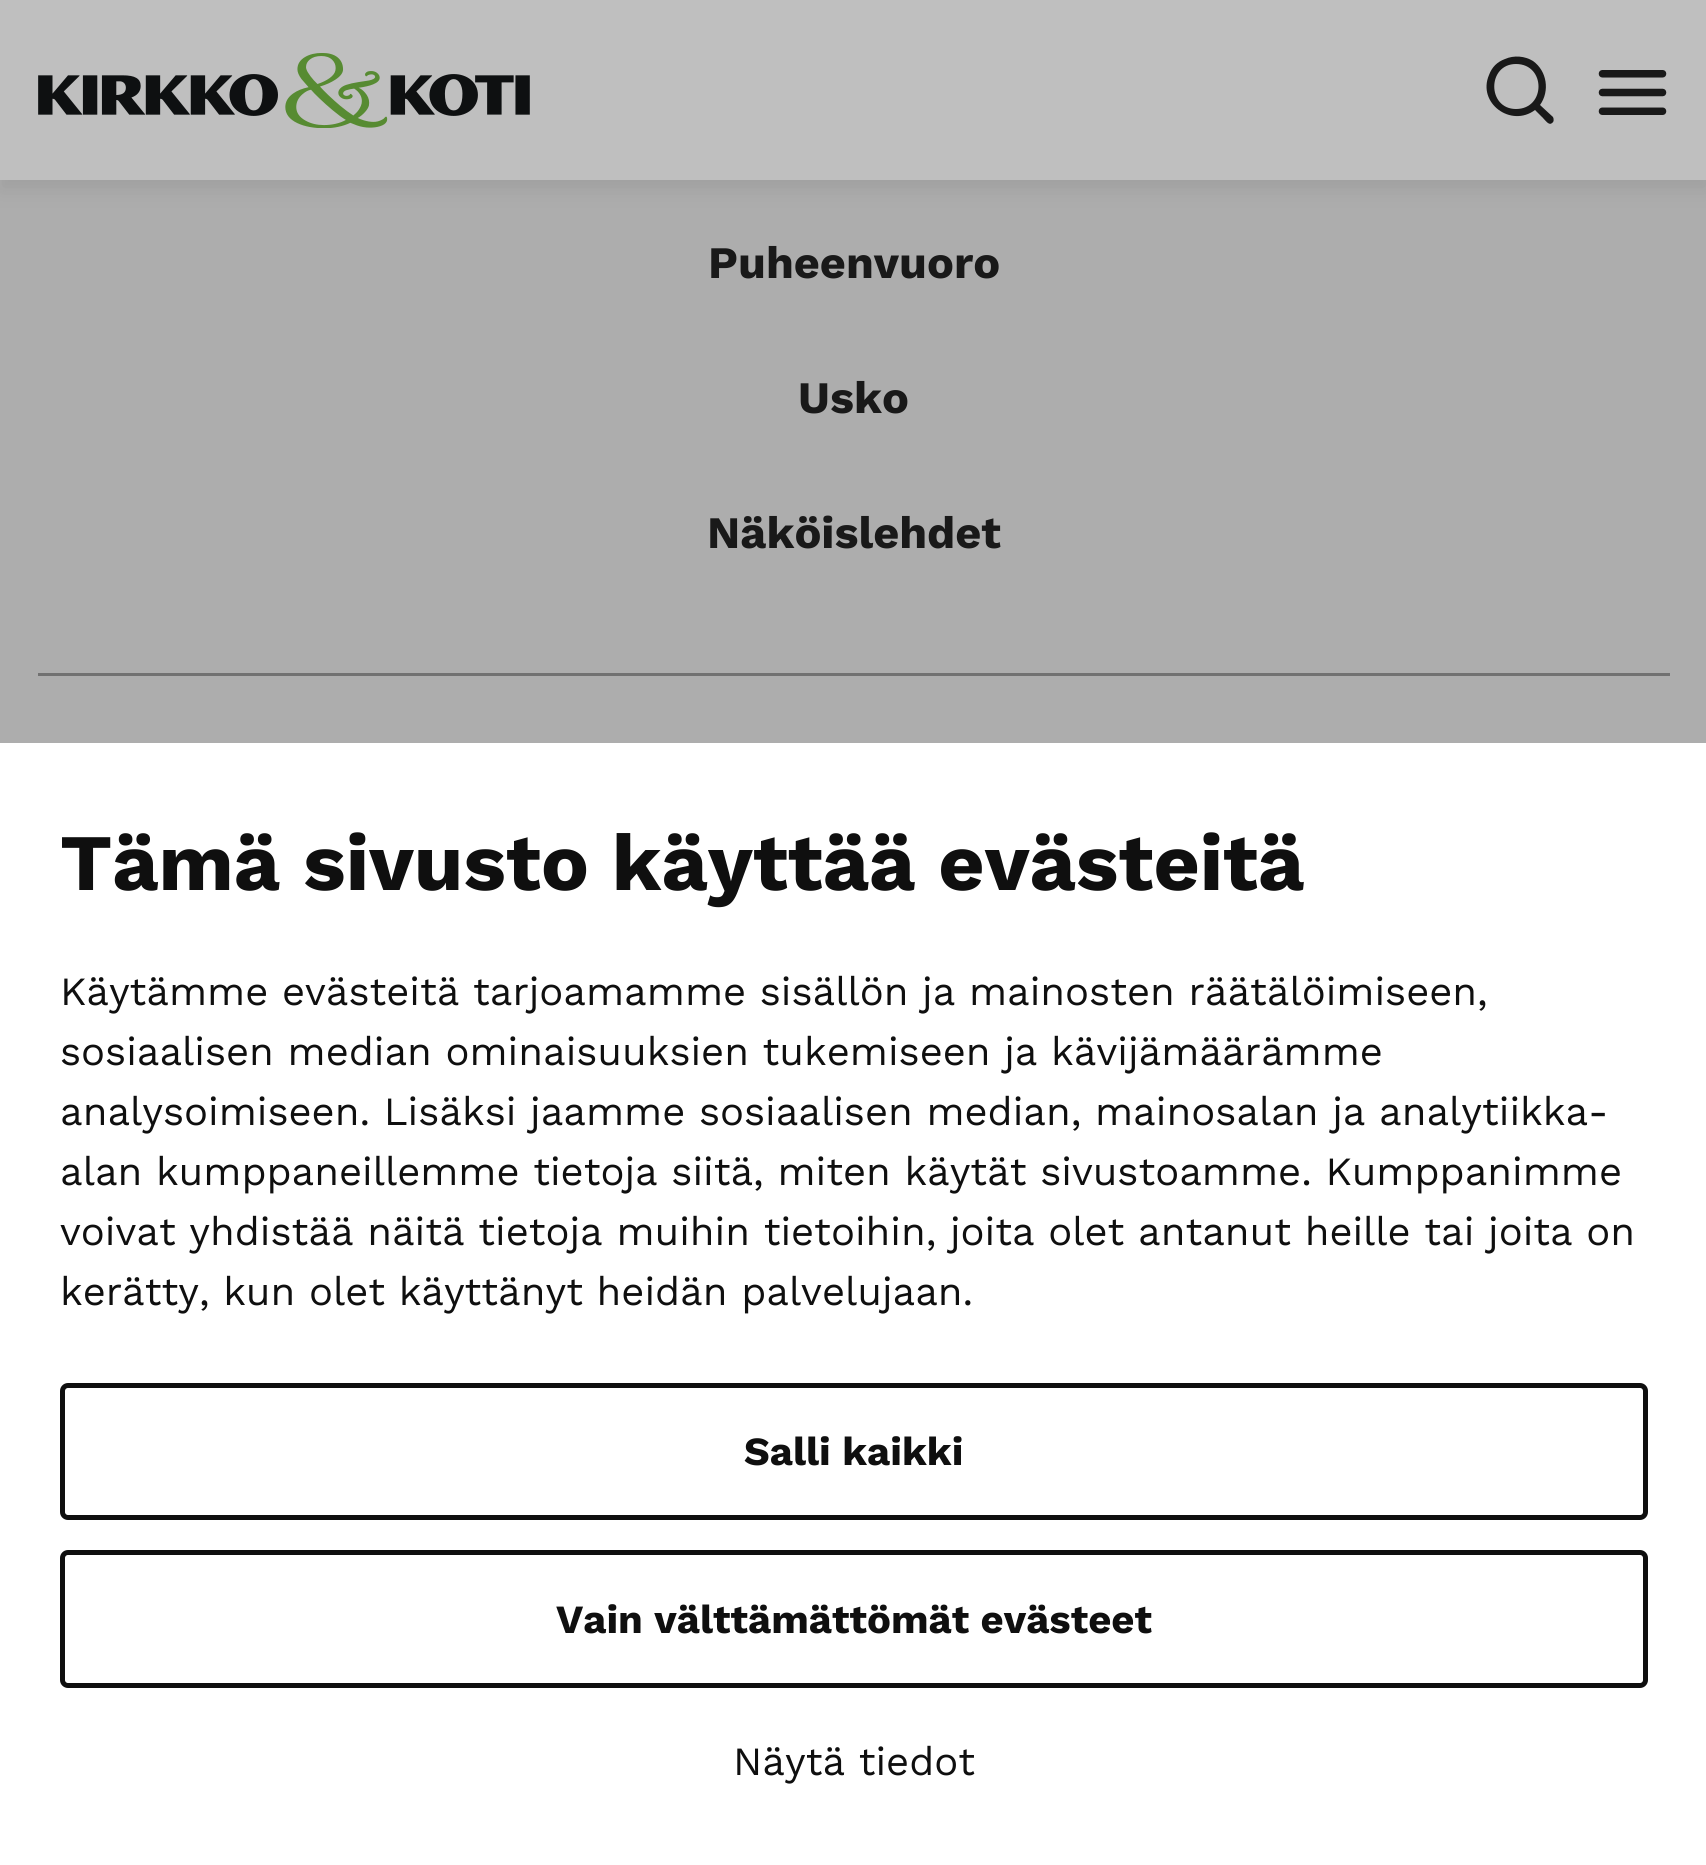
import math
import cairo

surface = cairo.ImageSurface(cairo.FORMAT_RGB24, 1706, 1865)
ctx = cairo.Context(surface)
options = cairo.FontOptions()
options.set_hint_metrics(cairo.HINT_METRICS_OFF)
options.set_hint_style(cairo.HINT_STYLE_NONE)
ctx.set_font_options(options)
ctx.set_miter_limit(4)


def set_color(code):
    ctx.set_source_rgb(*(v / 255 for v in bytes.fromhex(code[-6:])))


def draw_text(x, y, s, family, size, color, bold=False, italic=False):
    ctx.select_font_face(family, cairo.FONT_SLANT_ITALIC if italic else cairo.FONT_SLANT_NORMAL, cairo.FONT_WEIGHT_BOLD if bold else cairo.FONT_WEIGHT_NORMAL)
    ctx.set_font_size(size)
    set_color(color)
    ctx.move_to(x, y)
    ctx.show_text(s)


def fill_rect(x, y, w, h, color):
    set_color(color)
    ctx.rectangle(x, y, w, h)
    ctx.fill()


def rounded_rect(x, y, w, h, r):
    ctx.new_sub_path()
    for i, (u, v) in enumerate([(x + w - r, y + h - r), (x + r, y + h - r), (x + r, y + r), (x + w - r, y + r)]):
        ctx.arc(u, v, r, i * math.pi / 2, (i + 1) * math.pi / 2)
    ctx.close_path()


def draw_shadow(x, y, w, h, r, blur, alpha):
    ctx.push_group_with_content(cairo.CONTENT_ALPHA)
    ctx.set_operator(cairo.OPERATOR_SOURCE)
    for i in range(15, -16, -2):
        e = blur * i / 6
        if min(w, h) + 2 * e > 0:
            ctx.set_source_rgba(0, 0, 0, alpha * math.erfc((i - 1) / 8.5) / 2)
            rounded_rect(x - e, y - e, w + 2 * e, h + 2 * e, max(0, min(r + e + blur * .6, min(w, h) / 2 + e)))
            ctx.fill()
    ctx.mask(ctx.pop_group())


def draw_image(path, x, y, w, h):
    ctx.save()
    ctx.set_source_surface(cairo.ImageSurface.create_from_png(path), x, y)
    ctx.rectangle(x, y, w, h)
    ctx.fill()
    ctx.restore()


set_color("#adadad")
ctx.paint()
set_color("#242526")
draw_shadow(0, 10, 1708, 180, 0, 10, 0.1)
fill_rect(0, 0, 1706, 180, "#bfbfbf")
draw_image("assets/img1.png", 38, 53, 492, 75)
set_color("#191919")
ctx.new_path()
ctx.move_to(1516, 64)
ctx.curve_to(1546, 64, 1546, 109, 1516, 109)
ctx.curve_to(1487, 109, 1487, 64, 1516, 64)
ctx.close_path()
ctx.move_to(1540, 105)
ctx.curve_to(1550, 91, 1547, 71, 1533, 61)
ctx.curve_to(1525, 56, 1514, 55, 1505, 59)
ctx.curve_to(1497, 62, 1492, 67, 1489, 75)
ctx.curve_to(1477, 103, 1511, 128, 1535, 110)
ctx.line_to(1543, 118)
ctx.curve_to(1545, 120, 1549, 126, 1552, 123)
ctx.curve_to(1554, 122, 1554, 119, 1553, 117)
ctx.close_path()
ctx.fill()
draw_image("assets/img2.png", 1598, 70, 69, 45)
draw_text(708, 278, "Puheenvuoro", "Work Sans", 45, "#191919", bold=True)
draw_text(798, 413, "Usko", "Work Sans", 45, "#191919", bold=True)
draw_text(707, 548, "Näköislehdet", "Work Sans", 45, "#191919", bold=True)
fill_rect(38, 673, 1632, 3, "#717171")
fill_rect(0, 743, 1706, 1122, "#ffffff")
draw_text(60, 890, "Tämä sivusto käyttää evästeitä", "Work Sans", 80, "#0f0f0f", bold=True)
draw_text(60, 1005, "Käytämme evästeitä tarjoamamme sisällön ja mainosten räätälöimiseen,", "Work Sans", 40, "#0f0f0f")
draw_text(60, 1065, "sosiaalisen median ominaisuuksien tukemiseen ja kävijämäärämme", "Work Sans", 40, "#0f0f0f")
draw_text(60, 1125, "analysoimiseen. Lisäksi jaamme sosiaalisen median, mainosalan ja analytiikka-", "Work Sans", 40, "#0f0f0f")
draw_text(60, 1185, "alan kumppaneillemme tietoja siitä, miten käytät sivustoamme. Kumppanimme", "Work Sans", 40, "#0f0f0f")
draw_text(60, 1245, "voivat yhdistää näitä tietoja muihin tietoihin, joita olet antanut heille tai joita on", "Work Sans", 40, "#0f0f0f")
draw_text(60, 1305, "kerätty, kun olet käyttänyt heidän palvelujaan.", "Work Sans", 40, "#0f0f0f")
rounded_rect(62.5, 1385.5, 1583, 132, 5.5)
ctx.set_line_width(5)
ctx.stroke()
draw_text(744, 1465, "Salli kaikki", "Work Sans", 40, "#0f0f0f", bold=True)
rounded_rect(62.5, 1552.5, 1583, 133, 5.5)
ctx.stroke()
draw_text(556, 1633, "Vain välttämättömät evästeet", "Work Sans", 40, "#0f0f0f", bold=True)
draw_text(733, 1775, "Näytä tiedot", "Work Sans", 40, "#0f0f0f")
surface.write_to_png("output.png")
